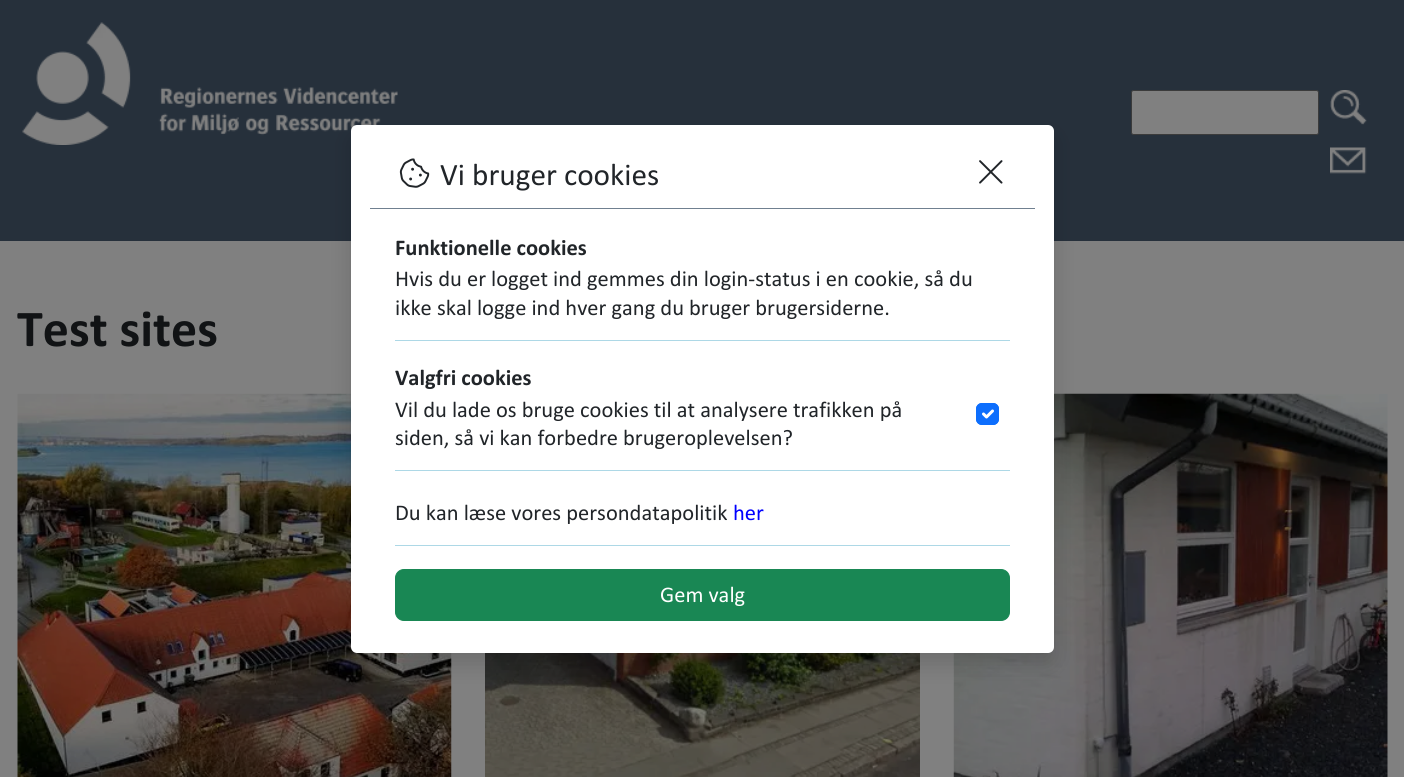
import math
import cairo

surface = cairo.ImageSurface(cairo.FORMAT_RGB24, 1404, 777)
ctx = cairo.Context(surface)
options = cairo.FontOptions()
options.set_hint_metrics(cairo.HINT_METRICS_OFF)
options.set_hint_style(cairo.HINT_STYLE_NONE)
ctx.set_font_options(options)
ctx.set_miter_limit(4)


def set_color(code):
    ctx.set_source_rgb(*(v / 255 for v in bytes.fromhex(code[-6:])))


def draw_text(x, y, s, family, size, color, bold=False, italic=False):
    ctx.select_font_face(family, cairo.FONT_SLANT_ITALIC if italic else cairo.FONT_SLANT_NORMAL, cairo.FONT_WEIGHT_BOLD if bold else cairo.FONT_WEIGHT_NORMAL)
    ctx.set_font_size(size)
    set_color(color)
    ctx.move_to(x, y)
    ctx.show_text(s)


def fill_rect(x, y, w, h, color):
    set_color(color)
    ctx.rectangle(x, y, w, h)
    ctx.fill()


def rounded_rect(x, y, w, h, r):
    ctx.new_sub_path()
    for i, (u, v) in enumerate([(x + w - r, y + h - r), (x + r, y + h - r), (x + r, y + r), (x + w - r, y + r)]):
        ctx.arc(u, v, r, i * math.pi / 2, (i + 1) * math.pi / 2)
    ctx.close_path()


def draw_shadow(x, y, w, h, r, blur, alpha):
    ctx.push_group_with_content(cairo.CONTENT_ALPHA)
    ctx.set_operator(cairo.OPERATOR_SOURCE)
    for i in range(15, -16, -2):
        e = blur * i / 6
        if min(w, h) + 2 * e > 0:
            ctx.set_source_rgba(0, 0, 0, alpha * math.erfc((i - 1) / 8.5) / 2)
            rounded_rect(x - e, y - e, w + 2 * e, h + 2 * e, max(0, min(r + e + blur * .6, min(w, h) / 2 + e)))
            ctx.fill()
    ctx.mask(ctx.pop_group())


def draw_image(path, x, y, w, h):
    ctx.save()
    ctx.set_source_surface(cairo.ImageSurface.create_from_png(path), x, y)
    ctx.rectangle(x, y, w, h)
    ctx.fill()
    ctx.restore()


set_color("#808080")
ctx.paint()
fill_rect(0, 0, 1404, 241, "#26303b")
draw_image("assets/img1.png", 22, 22, 376, 123)
set_color("#808080")
rounded_rect(1131.5, 90.5, 187, 44, 2)
ctx.fill_preserve()
set_color("#3b3b3b")
ctx.set_line_width(1)
ctx.stroke()
draw_image("assets/img2.png", 1330, 90, 37, 35)
draw_image("assets/img3.png", 1330, 147, 37, 27)
draw_text(17, 346, "Test sites", "Calibri", 52, "#111315", bold=True)
draw_image("assets/img4.png", 17, 393, 435, 384)
draw_image("assets/img5.png", 485, 653, 435, 124)
draw_image("assets/img6.png", 953, 393, 435, 384)
set_color("#ffffff")
rounded_rect(351, 125, 703, 528, 6)
ctx.fill()
ctx.save()
ctx.set_fill_rule(cairo.FILL_RULE_EVEN_ODD)
ctx.new_path()
ctx.move_to(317, 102)
ctx.line_to(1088, 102)
ctx.line_to(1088, 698)
ctx.line_to(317, 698)
ctx.close_path()
ctx.move_to(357, 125)
ctx.line_to(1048, 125)
ctx.curve_to(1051.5, 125, 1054, 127.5, 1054, 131)
ctx.line_to(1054, 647)
ctx.curve_to(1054, 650.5, 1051.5, 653, 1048, 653)
ctx.line_to(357, 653)
ctx.curve_to(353.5, 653, 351, 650.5, 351, 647)
ctx.line_to(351, 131)
ctx.curve_to(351, 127.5, 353.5, 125, 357, 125)
ctx.close_path()
ctx.clip()
set_color("#000000")
draw_shadow(351, 136, 703, 528, 6, 11, 0.15)
ctx.restore()
fill_rect(370, 208, 665, 1, "#708090")
draw_image("assets/img7.png", 399, 158, 31, 30)
draw_text(440, 185, "Vi bruger cookies", "Calibri", 31.25, "#212529")
draw_image("assets/img8.png", 979, 160, 24, 24)
fill_rect(395, 340, 615, 1, "#add8e6")
draw_text(395, 255, "Funktionelle cookies", "Calibri", 22.5, "#212529", bold=True)
draw_text(395, 286, "Hvis du er logget ind gemmes din login-status i en cookie, så du", "Calibri", 22.5, "#212529")
draw_text(395, 315, "ikke skal logge ind hver gang du bruger brugersiderne.", "Calibri", 22.5, "#212529")
fill_rect(395, 470, 615, 1, "#add8e6")
draw_text(395, 385, "Valgfri cookies", "Calibri", 22.5, "#212529", bold=True)
draw_text(395, 417, "Vil du lade os bruge cookies til at analysere trafikken på", "Calibri", 22.5, "#212529")
draw_text(395, 445, "siden, så vi kan forbedre brugeroplevelsen?", "Calibri", 22.5, "#212529")
set_color("#0d6efd")
rounded_rect(976, 403, 23, 22, 6)
ctx.fill()
ctx.new_path()
ctx.move_to(983.5, 414)
ctx.line_to(986.5, 417)
ctx.line_to(992.5, 411)
set_color("#ffffff")
ctx.set_line_width(3)
ctx.set_line_cap(cairo.LINE_CAP_ROUND)
ctx.set_line_join(cairo.LINE_JOIN_ROUND)
ctx.stroke()
rounded_rect(976.5, 403.5, 22, 21, 5.5)
set_color("#0d6efd")
ctx.set_line_width(1)
ctx.set_line_cap(cairo.LINE_CAP_BUTT)
ctx.set_line_join(cairo.LINE_JOIN_MITER)
ctx.stroke()
fill_rect(395, 545, 615, 1, "#add8e6")
draw_text(395, 520, "Du kan læse vores persondatapolitik", "Calibri", 22.5, "#212529")
draw_text(733, 520, "her", "Calibri", 22.5, "#0000ff")
set_color("#198754")
rounded_rect(395.5, 569.5, 614, 51, 8.5)
ctx.fill_preserve()
ctx.stroke()
draw_text(660, 602, "Gem valg", "Calibri", 22.5, "#ffffff")
surface.write_to_png("output.png")
